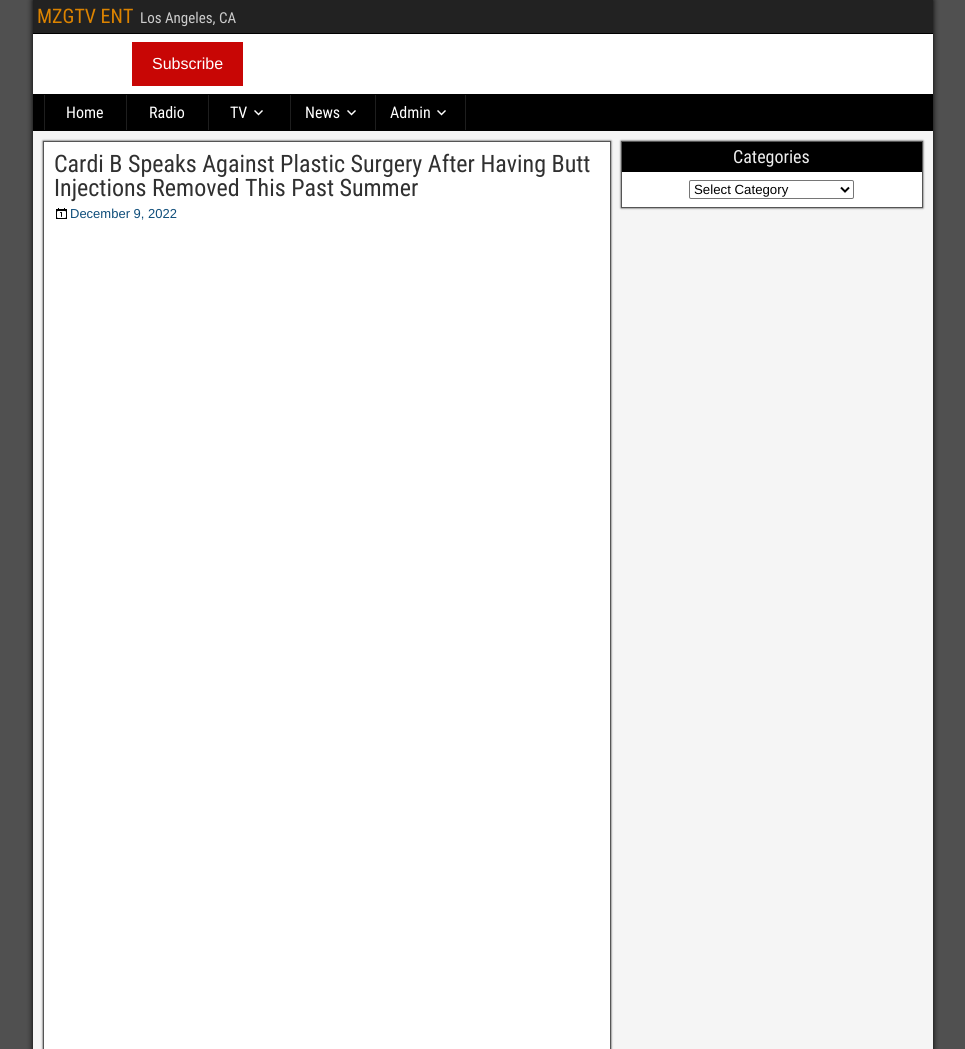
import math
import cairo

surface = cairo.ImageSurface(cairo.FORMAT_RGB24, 965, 1049)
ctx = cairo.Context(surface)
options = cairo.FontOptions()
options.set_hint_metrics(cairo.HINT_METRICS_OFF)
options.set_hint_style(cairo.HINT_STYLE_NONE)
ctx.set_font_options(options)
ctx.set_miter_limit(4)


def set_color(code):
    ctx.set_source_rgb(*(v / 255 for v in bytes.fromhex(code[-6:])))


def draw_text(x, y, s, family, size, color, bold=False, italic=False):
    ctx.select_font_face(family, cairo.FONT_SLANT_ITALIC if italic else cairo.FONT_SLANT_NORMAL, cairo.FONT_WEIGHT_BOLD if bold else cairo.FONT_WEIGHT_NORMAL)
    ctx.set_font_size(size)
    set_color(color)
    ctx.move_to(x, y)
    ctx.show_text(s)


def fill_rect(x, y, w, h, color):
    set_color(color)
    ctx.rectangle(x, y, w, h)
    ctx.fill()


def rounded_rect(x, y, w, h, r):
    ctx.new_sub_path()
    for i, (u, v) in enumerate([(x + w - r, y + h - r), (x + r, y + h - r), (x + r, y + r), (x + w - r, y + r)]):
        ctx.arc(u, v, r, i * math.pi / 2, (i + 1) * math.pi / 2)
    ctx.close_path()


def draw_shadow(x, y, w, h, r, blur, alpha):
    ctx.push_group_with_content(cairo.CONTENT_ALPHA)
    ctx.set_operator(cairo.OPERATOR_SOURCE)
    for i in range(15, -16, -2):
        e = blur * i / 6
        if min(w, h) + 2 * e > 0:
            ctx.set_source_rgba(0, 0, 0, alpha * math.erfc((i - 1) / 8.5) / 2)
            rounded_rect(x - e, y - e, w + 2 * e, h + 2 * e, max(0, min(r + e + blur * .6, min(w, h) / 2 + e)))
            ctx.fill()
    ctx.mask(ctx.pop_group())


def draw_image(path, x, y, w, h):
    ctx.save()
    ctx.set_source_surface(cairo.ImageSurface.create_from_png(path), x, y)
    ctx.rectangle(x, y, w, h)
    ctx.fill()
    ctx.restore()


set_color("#505050")
ctx.paint()
set_color("#000000")
draw_shadow(33, 0, 900, 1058, 0, 3, 1)
fill_rect(33, 0, 900, 33, "#222222")
fill_rect(33, 33, 900, 1, "#000000")
draw_text(37, 23, "MZGTV ENT", "Roboto Condensed", 20, "#dc8300")
draw_text(140, 23, "Los Angeles, CA", "Roboto Condensed", 15, "#cccccc")
fill_rect(33, 34, 900, 60, "#ffffff")
fill_rect(33, 94, 900, 37, "#000000")
fill_rect(132, 42, 111, 44, "#c80605")
draw_text(152, 69, "Subscribe", "Liberation Sans", 16, "#ffffff")
fill_rect(465, 95, 1, 35, "#1e1e1e")
fill_rect(44, 95, 1, 35, "#1e1e1e")
draw_text(66, 118, "Home", "Roboto Condensed", 16, "#ffffff")
fill_rect(126, 95, 1, 35, "#1e1e1e")
draw_text(149, 118, "Radio", "Roboto Condensed", 16, "#ffffff")
fill_rect(208, 95, 1, 35, "#1e1e1e")
draw_text(230, 118, "TV", "Roboto Condensed", 16, "#ffffff")
draw_image("assets/img1.png", 254, 110, 9, 6)
fill_rect(290, 95, 1, 35, "#1e1e1e")
draw_text(305, 118, "News", "Roboto Condensed", 16, "#ffffff")
draw_image("assets/img1.png", 347, 110, 9, 6)
fill_rect(375, 95, 1, 35, "#1e1e1e")
draw_text(390, 118, "Admin", "Roboto Condensed", 16, "#ffffff")
draw_image("assets/img1.png", 437, 110, 9, 6)
fill_rect(33, 131, 900, 918, "#f5f5f5")
set_color("#333333")
draw_shadow(43, 141, 568, 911, 0, 1, 1)
set_color("#ffffff")
ctx.rectangle(43.5, 141.5, 567, 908)
ctx.fill_preserve()
set_color("#555555")
ctx.set_line_width(1)
ctx.stroke()
draw_text(54, 172, "Cardi B Speaks Against Plastic Surgery After Having Butt", "Roboto Condensed", 24, "#303030")
draw_text(54, 196, "Injections Removed This Past Summer", "Roboto Condensed", 24, "#303030")
draw_image("assets/img2.png", 56, 208, 11, 11)
draw_text(70, 218, "December 9, 2022", "Liberation Sans", 13, "#0e4d7a")
set_color("#333333")
draw_shadow(621, 141, 302, 67, 0, 1, 1)
fill_rect(622, 172, 300, 35, "#ffffff")
ctx.rectangle(621.5, 141.5, 301, 66)
set_color("#555555")
ctx.stroke()
fill_rect(622, 142, 300, 30, "#000000")
draw_text(733, 163, "Categories", "Roboto Condensed", 18, "#eeeeee")
rounded_rect(689.5, 180.5, 164, 18, 1.5)
set_color("#767676")
ctx.stroke()
ctx.new_path()
ctx.move_to(841, 187.5)
ctx.line_to(845, 191.5)
ctx.line_to(849, 187.5)
set_color("#000000")
ctx.set_line_width(2)
ctx.stroke()
draw_text(694, 194, "Select Category", "Liberation Sans", 13.25, "#000000")
surface.write_to_png("output.png")
